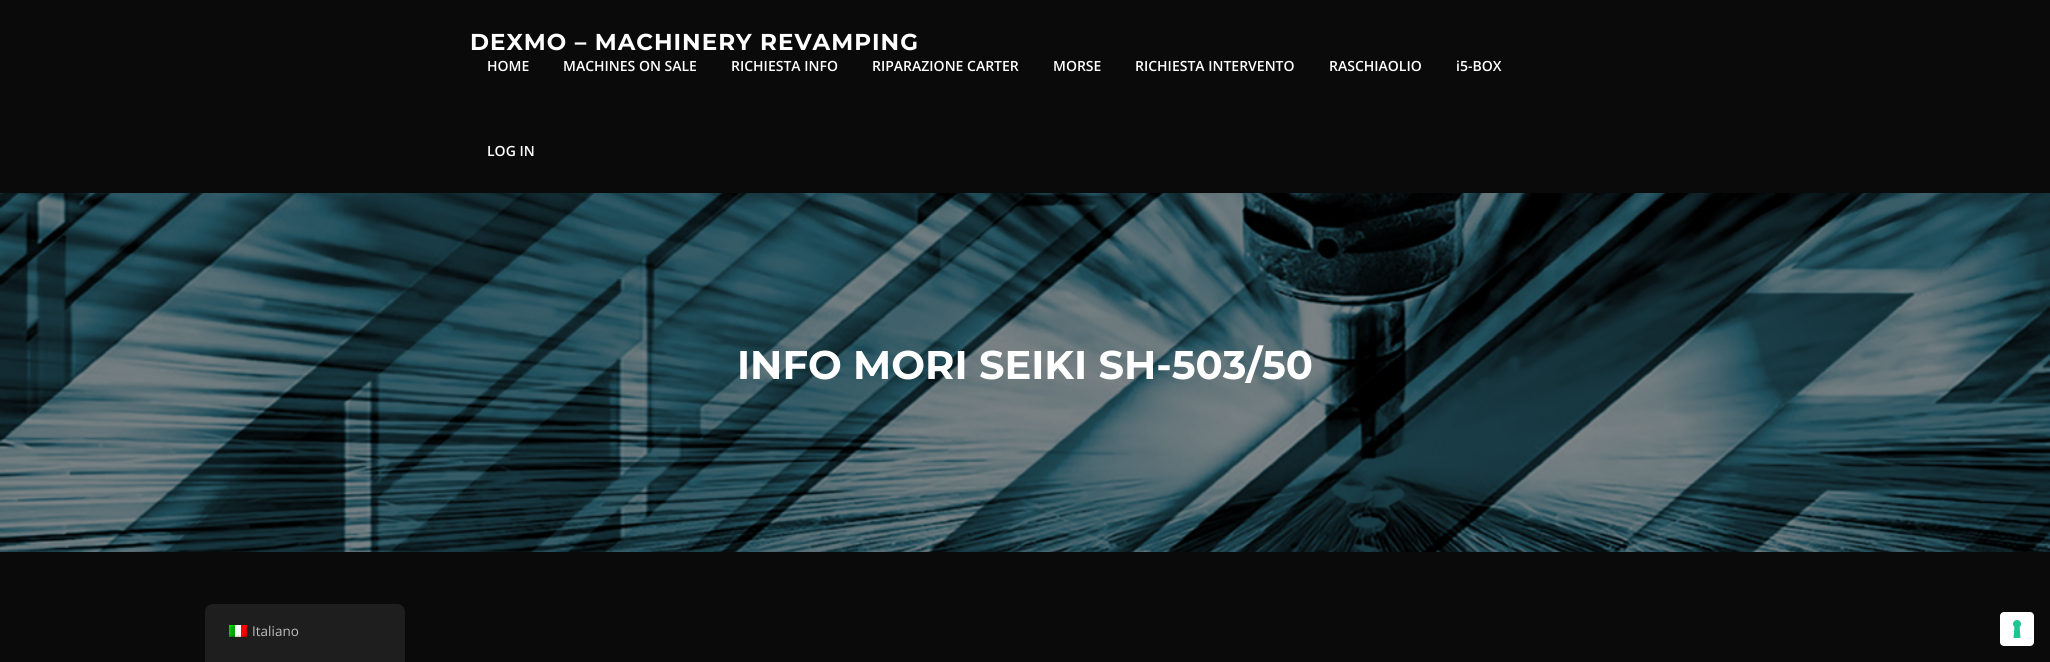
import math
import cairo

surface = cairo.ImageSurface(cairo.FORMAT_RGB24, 2050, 662)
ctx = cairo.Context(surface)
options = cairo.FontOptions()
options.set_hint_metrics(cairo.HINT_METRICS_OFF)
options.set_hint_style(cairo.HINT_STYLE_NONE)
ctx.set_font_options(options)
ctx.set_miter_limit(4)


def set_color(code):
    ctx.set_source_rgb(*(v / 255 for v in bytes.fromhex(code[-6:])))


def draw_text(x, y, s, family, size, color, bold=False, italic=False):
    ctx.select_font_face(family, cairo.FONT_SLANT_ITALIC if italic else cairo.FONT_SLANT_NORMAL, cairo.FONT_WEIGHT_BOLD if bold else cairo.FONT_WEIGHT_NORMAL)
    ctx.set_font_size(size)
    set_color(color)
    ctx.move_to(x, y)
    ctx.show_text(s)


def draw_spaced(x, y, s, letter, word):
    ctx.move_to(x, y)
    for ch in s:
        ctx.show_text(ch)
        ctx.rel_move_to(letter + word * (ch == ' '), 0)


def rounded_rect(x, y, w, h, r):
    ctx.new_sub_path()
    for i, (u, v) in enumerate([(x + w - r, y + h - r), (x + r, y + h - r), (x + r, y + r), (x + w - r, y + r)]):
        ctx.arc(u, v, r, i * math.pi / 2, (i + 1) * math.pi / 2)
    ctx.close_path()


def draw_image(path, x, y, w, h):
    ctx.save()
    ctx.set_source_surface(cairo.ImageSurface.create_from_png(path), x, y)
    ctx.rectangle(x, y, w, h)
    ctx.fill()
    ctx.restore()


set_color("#0a0a0a")
ctx.paint()
ctx.select_font_face("Montserrat", cairo.FONT_SLANT_NORMAL, cairo.FONT_WEIGHT_BOLD)
ctx.set_font_size(23)
set_color("#ffffff")
draw_spaced(470, 50, "DEXMO – MACHINERY REVAMPING", 1, 0)
draw_text(487, 71, "HOME", "Open Sans SemiBold", 14, "#ffffff")
draw_text(563, 71, "MACHINES ON SALE", "Open Sans SemiBold", 14, "#ffffff")
draw_text(731, 71, "RICHIESTA INFO", "Open Sans SemiBold", 14, "#ffffff")
draw_text(872, 71, "RIPARAZIONE CARTER", "Open Sans SemiBold", 14, "#ffffff")
draw_text(1053, 71, "MORSE", "Open Sans SemiBold", 14, "#ffffff")
draw_text(1135, 71, "RICHIESTA INTERVENTO", "Open Sans SemiBold", 14, "#ffffff")
draw_text(1329, 71, "RASCHIAOLIO", "Open Sans SemiBold", 14, "#ffffff")
draw_text(1456, 71, "i5-BOX", "Open Sans SemiBold", 14, "#ffffff")
draw_text(487, 156, "LOG IN", "Open Sans SemiBold", 14, "#ffffff")
draw_image("assets/img1.png", 0, 193, 2050, 359)
draw_text(737, 379, "INFO MORI SEIKI SH-503/50", "Montserrat", 40, "#ffffff", bold=True)
set_color("#1e1e1e")
ctx.new_path()
ctx.move_to(213, 604)
ctx.line_to(397, 604)
ctx.curve_to(401.5, 604, 405, 607.5, 405, 612)
ctx.line_to(405, 662)
ctx.line_to(205, 662)
ctx.line_to(205, 612)
ctx.curve_to(205, 607.5, 208.5, 604, 213, 604)
ctx.close_path()
ctx.fill()
draw_image("assets/img2.png", 229, 625, 18, 12)
draw_text(252, 636, "Italiano", "Open Sans", 13.5, "#bdbdbd")
set_color("#ffffff")
rounded_rect(2000, 612, 34, 34, 4)
ctx.fill()
draw_image("assets/img3.png", 2013, 620, 8, 18)
surface.write_to_png("output.png")
